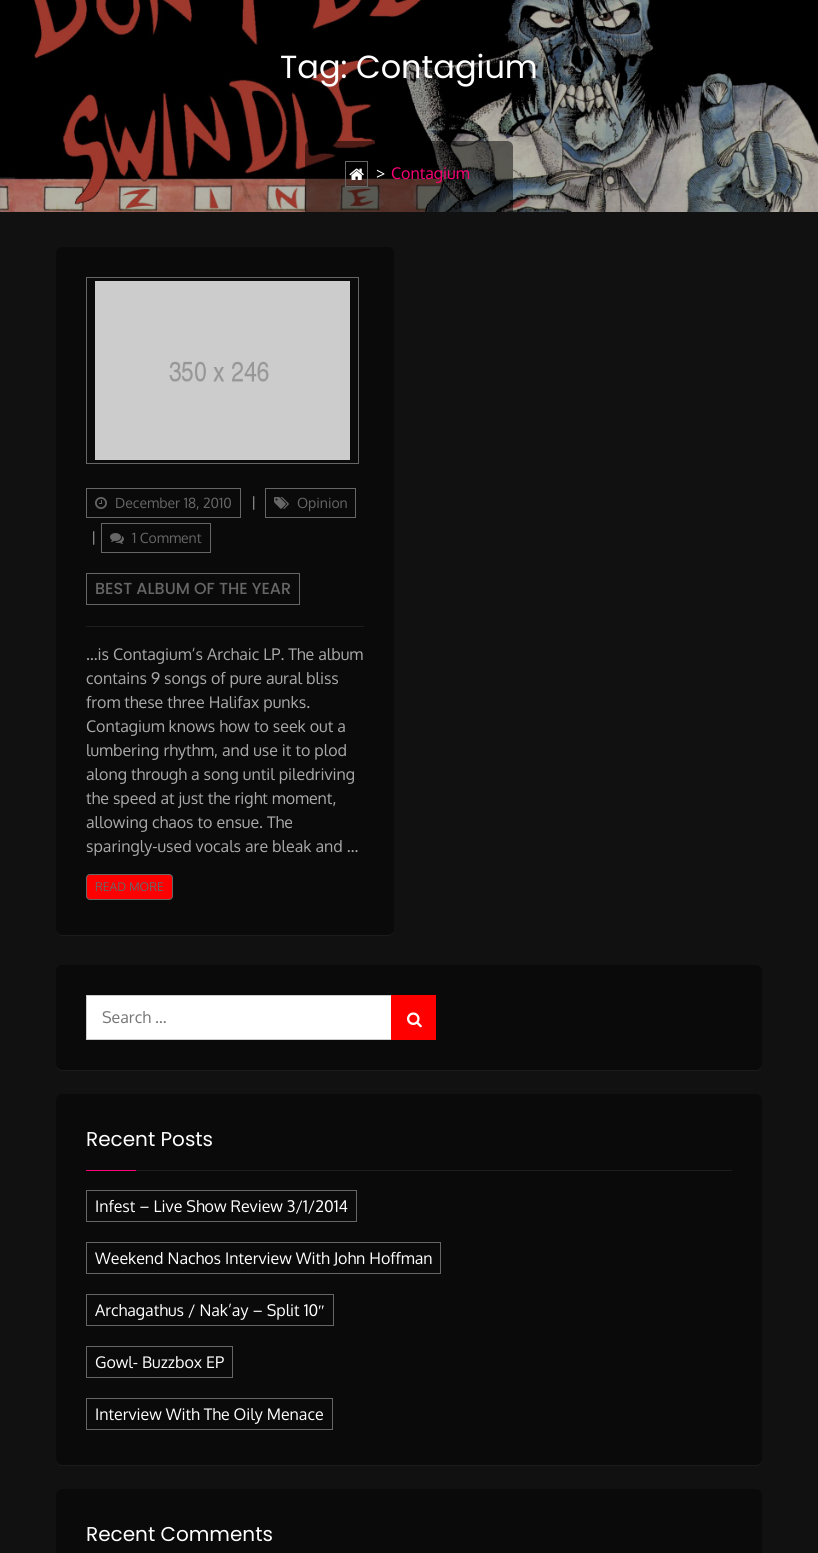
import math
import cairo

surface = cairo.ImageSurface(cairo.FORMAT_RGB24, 818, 1553)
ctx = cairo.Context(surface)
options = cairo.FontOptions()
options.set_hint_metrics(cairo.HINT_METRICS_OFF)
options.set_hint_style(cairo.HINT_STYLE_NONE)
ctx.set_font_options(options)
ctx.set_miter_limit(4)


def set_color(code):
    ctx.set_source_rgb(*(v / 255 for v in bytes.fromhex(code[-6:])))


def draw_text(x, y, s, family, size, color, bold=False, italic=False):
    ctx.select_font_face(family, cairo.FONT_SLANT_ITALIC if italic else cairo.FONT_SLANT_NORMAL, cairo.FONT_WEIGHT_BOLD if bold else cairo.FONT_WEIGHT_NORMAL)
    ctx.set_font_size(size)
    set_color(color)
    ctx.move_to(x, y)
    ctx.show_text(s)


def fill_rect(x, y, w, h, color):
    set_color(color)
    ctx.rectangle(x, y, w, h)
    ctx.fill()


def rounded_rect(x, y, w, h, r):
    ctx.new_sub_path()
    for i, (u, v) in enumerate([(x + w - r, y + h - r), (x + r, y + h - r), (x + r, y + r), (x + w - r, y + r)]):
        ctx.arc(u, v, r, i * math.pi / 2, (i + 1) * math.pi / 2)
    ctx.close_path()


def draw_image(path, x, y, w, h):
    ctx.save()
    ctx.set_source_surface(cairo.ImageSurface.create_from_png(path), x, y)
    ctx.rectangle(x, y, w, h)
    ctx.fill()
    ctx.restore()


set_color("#111111")
ctx.paint()
draw_image("assets/img1.png", 0, 0, 818, 212)
draw_text(280, 78, "Tag: Contagium", "Poppins", 32, "#ffffff")
ctx.set_source_rgba(0, 0, 0, 0.5)
ctx.new_path()
ctx.move_to(311, 141)
ctx.line_to(507, 141)
ctx.curve_to(510.5, 141, 513, 143.5, 513, 147)
ctx.line_to(513, 212)
ctx.line_to(305, 212)
ctx.line_to(305, 147)
ctx.curve_to(305, 143.5, 307.5, 141, 311, 141)
ctx.close_path()
ctx.fill()
ctx.rectangle(345.5, 161.5, 22, 25)
set_color("#666666")
ctx.set_line_width(1)
ctx.stroke()
draw_image("assets/img2.png", 349, 168, 15, 12)
draw_text(376, 179, ">", "Oxygen", 16, "#ffffff")
draw_text(391, 179, "Contagium", "Oxygen", 16, "#ff0078")
set_color("#1b1b1b")
ctx.new_path()
ctx.move_to(56, 929)
ctx.line_to(56, 930)
ctx.curve_to(56, 933, 59, 936, 62, 936)
ctx.line_to(388, 936)
ctx.curve_to(391, 936, 394, 933, 394, 930)
ctx.line_to(394, 929)
ctx.curve_to(394, 932, 391, 935, 388, 935)
ctx.line_to(62, 935)
ctx.curve_to(59, 935, 56, 932, 56, 929)
ctx.close_path()
ctx.fill()
ctx.set_source_rgba(0, 0, 0, 0.4)
rounded_rect(56, 247, 338, 688, 6)
ctx.fill()
ctx.rectangle(86.5, 277.5, 272, 186)
set_color("#666666")
ctx.stroke()
draw_image("assets/img3.png", 95, 281, 255, 179)
ctx.rectangle(86.5, 488.5, 154, 29)
ctx.stroke()
draw_image("assets/img4.png", 95, 497, 12, 12)
draw_text(115, 508, "December 18, 2010", "Oxygen", 14, "#666666")
draw_text(251, 507, "|", "Oxygen", 14, "#aaaaaa")
ctx.rectangle(265.5, 488.5, 90, 29)
set_color("#666666")
ctx.stroke()
draw_image("assets/img5.png", 274, 497, 15, 12)
draw_text(297, 508, "Opinion", "Oxygen", 14, "#666666")
draw_text(91, 542, "|", "Oxygen", 14, "#aaaaaa")
ctx.rectangle(101.5, 523.5, 109, 29)
set_color("#666666")
ctx.stroke()
draw_image("assets/img6.png", 110, 533, 14, 11)
draw_text(132, 543, "1 Comment", "Oxygen", 14, "#666666")
fill_rect(86, 626, 278, 1, "#1d1d1d")
ctx.rectangle(86.5, 573.5, 213, 31)
set_color("#666666")
ctx.stroke()
draw_text(95, 594, "BEST ALBUM OF THE YEAR", "Poppins Medium", 16, "#666666")
draw_text(86, 660, "…is Contagium‘s Archaic LP. The album", "Oxygen", 16, "#aaaaaa")
draw_text(86, 684, "contains 9 songs of pure aural bliss", "Oxygen", 16, "#aaaaaa")
draw_text(86, 708, "from these three Halifax punks.", "Oxygen", 16, "#aaaaaa")
draw_text(86, 732, "Contagium knows how to seek out a", "Oxygen", 16, "#aaaaaa")
draw_text(86, 756, "lumbering rhythm, and use it to plod", "Oxygen", 16, "#aaaaaa")
draw_text(86, 780, "along through a song until piledriving", "Oxygen", 16, "#aaaaaa")
draw_text(86, 804, "the speed at just the right moment,", "Oxygen", 16, "#aaaaaa")
draw_text(86, 828, "allowing chaos to ensue. The", "Oxygen", 16, "#aaaaaa")
draw_text(86, 852, "sparingly-used vocals are bleak and …", "Oxygen", 16, "#aaaaaa")
set_color("#ff0000")
rounded_rect(86.5, 874.5, 86, 25, 3.5)
ctx.fill_preserve()
set_color("#666666")
ctx.stroke()
draw_text(95, 891, "READ MORE", "Oxygen", 12, "#666666")
set_color("#1b1b1b")
ctx.new_path()
ctx.move_to(56, 1064)
ctx.curve_to(56, 1068, 58, 1071, 62, 1071)
ctx.line_to(756, 1071)
ctx.curve_to(760, 1071, 762, 1068, 762, 1064)
ctx.curve_to(762, 1067, 759, 1070, 756, 1070)
ctx.line_to(62, 1070)
ctx.curve_to(59, 1070, 56, 1067, 56, 1064)
ctx.close_path()
ctx.fill()
ctx.set_source_rgba(0, 0, 0, 0.4)
rounded_rect(56, 965, 706, 105, 6)
ctx.fill()
fill_rect(87, 996, 304, 43, "#ffffff")
ctx.rectangle(86.5, 995.5, 349, 44)
set_color("#cccccc")
ctx.stroke()
draw_text(102, 1023, "Search …", "Oxygen", 16, "#757575")
fill_rect(391, 995, 45, 45, "#ff0000")
draw_image("assets/img7.png", 407, 1012, 15, 16)
set_color("#1b1b1b")
ctx.new_path()
ctx.move_to(56, 1459)
ctx.curve_to(56, 1463, 58, 1466, 62, 1466)
ctx.line_to(756, 1466)
ctx.curve_to(760, 1466, 762, 1463, 762, 1459)
ctx.curve_to(762, 1462, 759, 1465, 756, 1465)
ctx.line_to(62, 1465)
ctx.curve_to(59, 1465, 56, 1462, 56, 1459)
ctx.close_path()
ctx.fill()
ctx.set_source_rgba(0, 0, 0, 0.4)
rounded_rect(56, 1094, 706, 371, 6)
ctx.fill()
fill_rect(136, 1170, 596, 1, "#1d1d1d")
draw_text(86, 1146, "Recent Posts", "Poppins", 20, "#ffffff")
fill_rect(86, 1170, 50, 1, "#ff0078")
ctx.rectangle(86.5, 1190.5, 270, 31)
set_color("#666666")
ctx.stroke()
draw_text(95, 1212, "Infest – Live Show Review 3/1/2014", "Oxygen", 16, "#ffffff")
ctx.rectangle(86.5, 1242.5, 354, 31)
set_color("#666666")
ctx.stroke()
draw_text(95, 1264, "Weekend Nachos Interview With John Hoffman", "Oxygen", 16, "#ffffff")
ctx.rectangle(86.5, 1294.5, 247, 31)
set_color("#666666")
ctx.stroke()
draw_text(95, 1316, "Archagathus / Nak’ay – Split 10", "Oxygen", 16, "#ffffff")
draw_text(318, 1316, "″", "Liberation Serif", 16, "#ffffff")
ctx.rectangle(86.5, 1346.5, 146, 31)
set_color("#666666")
ctx.stroke()
draw_text(95, 1368, "Gowl- Buzzbox EP", "Oxygen", 16, "#ffffff")
ctx.rectangle(86.5, 1398.5, 246, 31)
set_color("#666666")
ctx.stroke()
draw_text(95, 1420, "Interview With The Oily Menace", "Oxygen", 16, "#ffffff")
set_color("#0a0a0a")
rounded_rect(56, 1489, 706, 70, 6)
ctx.fill()
draw_text(86, 1541, "Recent Comments", "Poppins", 20, "#ffffff")
surface.write_to_png("output.png")
